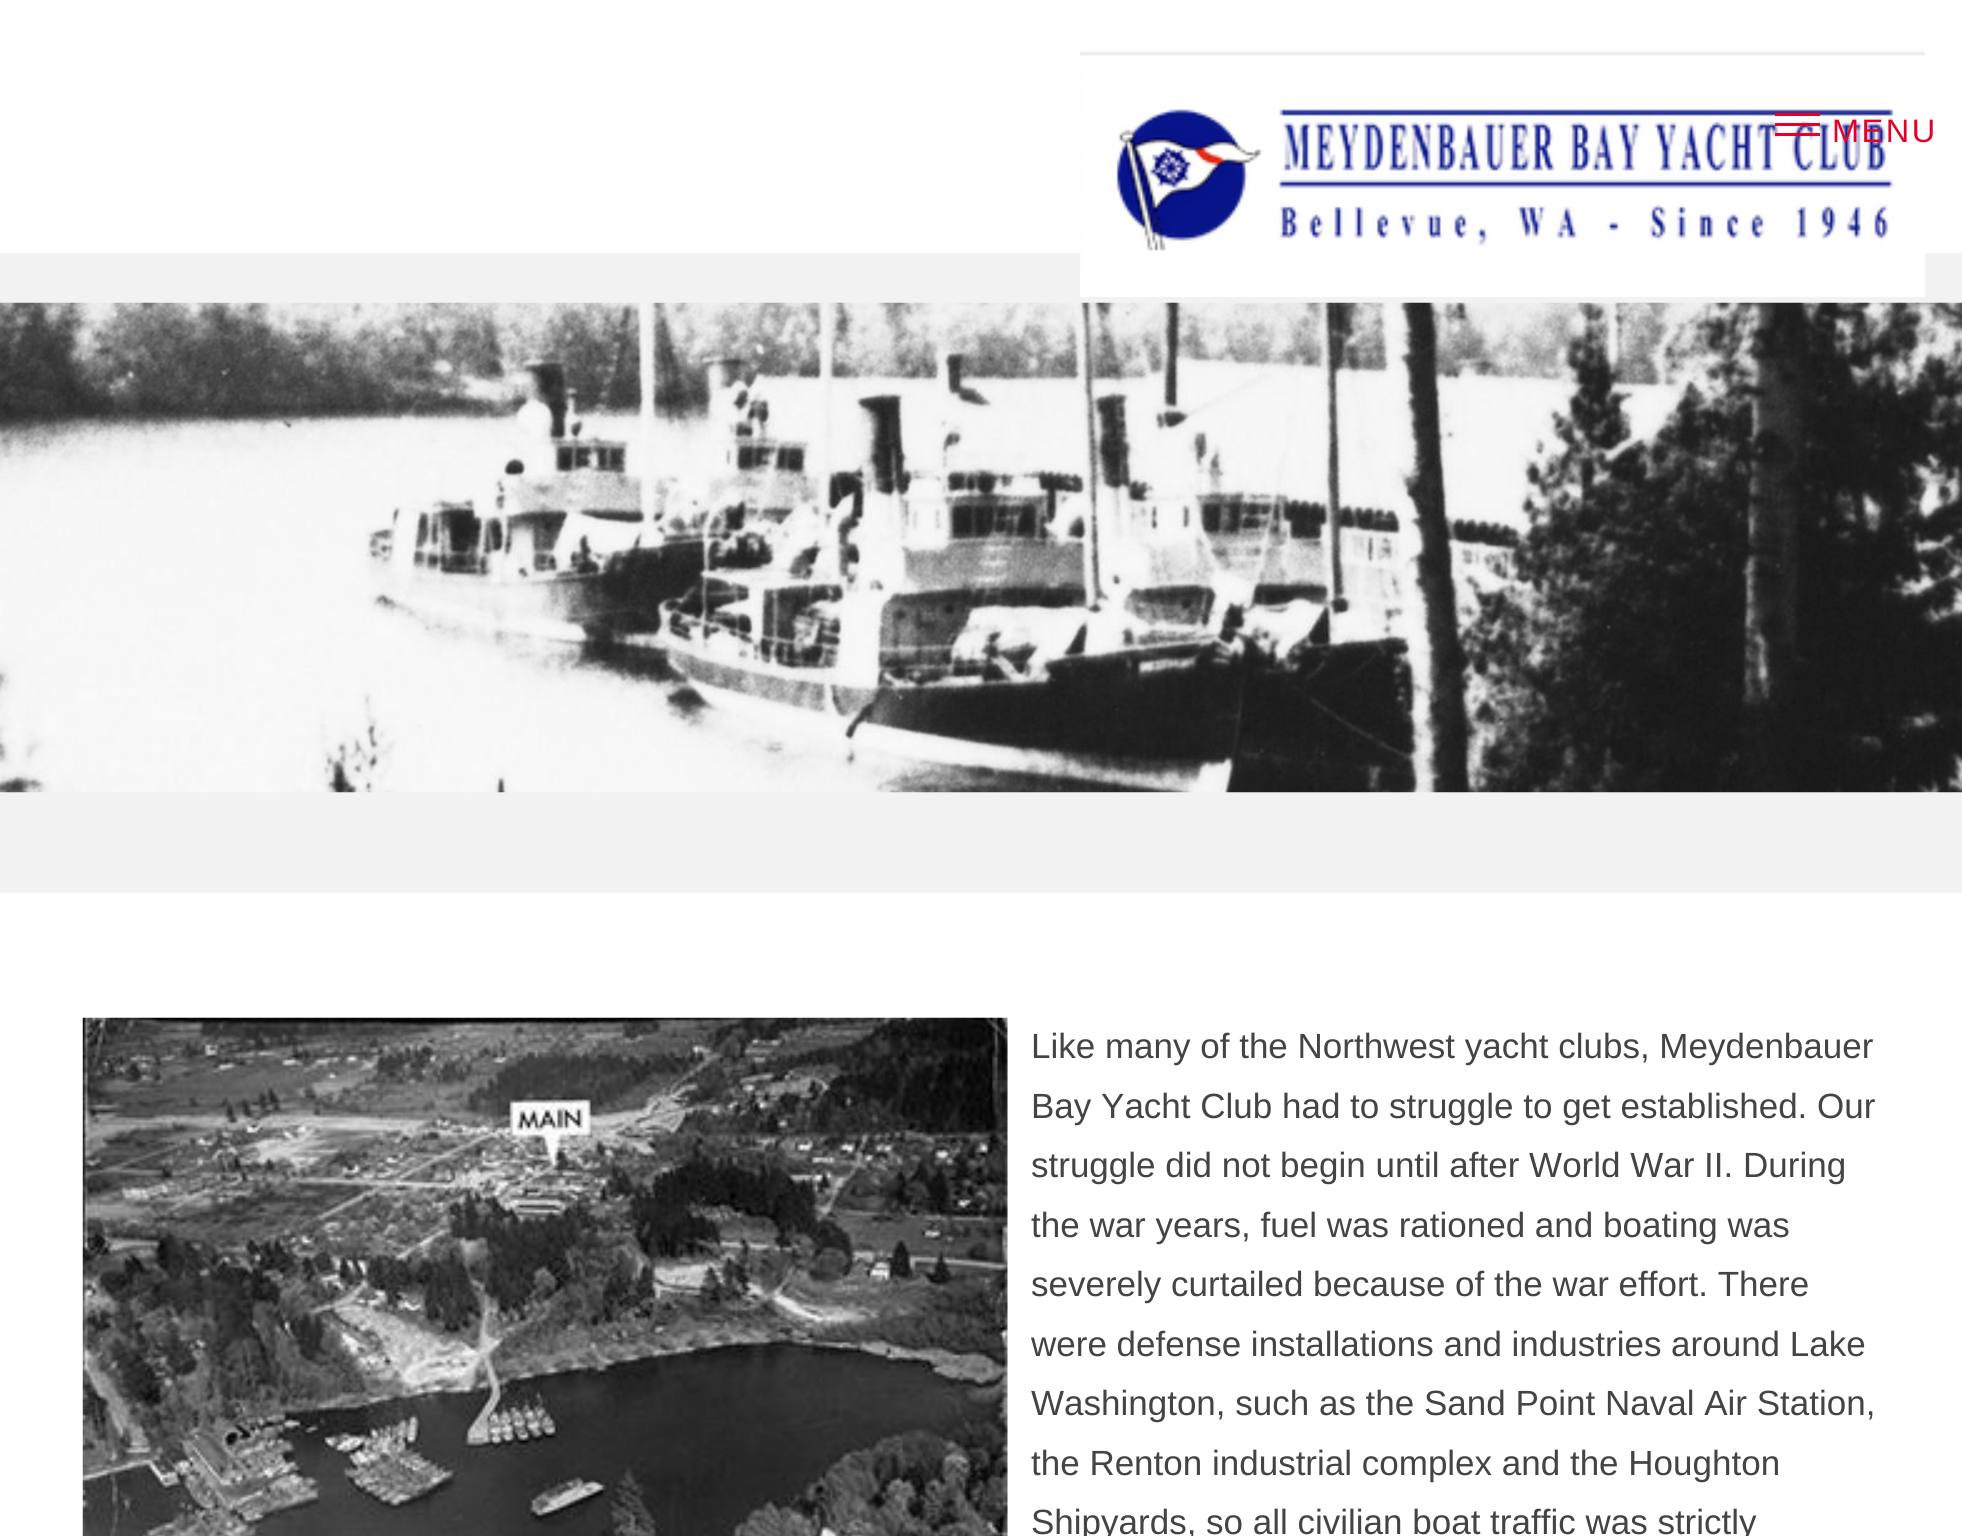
import math
import cairo

surface = cairo.ImageSurface(cairo.FORMAT_RGB24, 1962, 1536)
ctx = cairo.Context(surface)
options = cairo.FontOptions()
options.set_hint_metrics(cairo.HINT_METRICS_OFF)
options.set_hint_style(cairo.HINT_STYLE_NONE)
ctx.set_font_options(options)
ctx.set_miter_limit(4)


def set_color(code):
    ctx.set_source_rgb(*(v / 255 for v in bytes.fromhex(code[-6:])))


def draw_text(x, y, s, family, size, color, bold=False, italic=False):
    ctx.select_font_face(family, cairo.FONT_SLANT_ITALIC if italic else cairo.FONT_SLANT_NORMAL, cairo.FONT_WEIGHT_BOLD if bold else cairo.FONT_WEIGHT_NORMAL)
    ctx.set_font_size(size)
    set_color(color)
    ctx.move_to(x, y)
    ctx.show_text(s)


def draw_spaced(x, y, s, letter, word):
    ctx.move_to(x, y)
    for ch in s:
        ctx.show_text(ch)
        ctx.rel_move_to(letter + word * (ch == ' '), 0)


def fill_rect(x, y, w, h, color):
    set_color(color)
    ctx.rectangle(x, y, w, h)
    ctx.fill()


def draw_image(path, x, y, w, h):
    ctx.save()
    ctx.set_source_surface(cairo.ImageSurface.create_from_png(path), x, y)
    ctx.rectangle(x, y, w, h)
    ctx.fill()
    ctx.restore()


set_color("#ffffff")
ctx.paint()
fill_rect(0, 253, 1962, 640, "#f2f2f2")
draw_image("assets/img1.png", 1080, 50, 845, 247)
fill_rect(1775, 113, 45, 3, "#e4002b")
fill_rect(1775, 123, 45, 3, "#e4002b")
ctx.select_font_face("Liberation Sans")
ctx.set_font_size(32.5)
draw_spaced(1832, 142, "MENU", 2.5, 0)
fill_rect(1775, 133, 45, 3, "#e4002b")
draw_image("assets/img2.png", 0, 302, 1962, 491)
draw_image("assets/img3.png", 82, 1017, 926, 519)
draw_text(1031, 1058, "Like many of the Northwest yacht clubs, Meydenbauer", "Liberation Sans", 35, "#444444")
draw_text(1031, 1118, "Bay Yacht Club had to struggle to get established. Our", "Liberation Sans", 35, "#444444")
draw_text(1031, 1177, "struggle did not begin until after World War II. During", "Liberation Sans", 35, "#444444")
draw_text(1031, 1237, "the war years, fuel was rationed and boating was", "Liberation Sans", 35, "#444444")
draw_text(1031, 1296, "severely curtailed because of the war effort. There", "Liberation Sans", 35, "#444444")
draw_text(1031, 1356, "were defense installations and industries around Lake", "Liberation Sans", 35, "#444444")
draw_text(1031, 1415, "Washington, such as the Sand Point Naval Air Station,", "Liberation Sans", 35, "#444444")
draw_text(1031, 1475, "the Renton industrial complex and the Houghton", "Liberation Sans", 35, "#444444")
draw_text(1031, 1534, "Shipyards, so all civilian boat traffic was strictly", "Liberation Sans", 35, "#444444")
surface.write_to_png("output.png")
